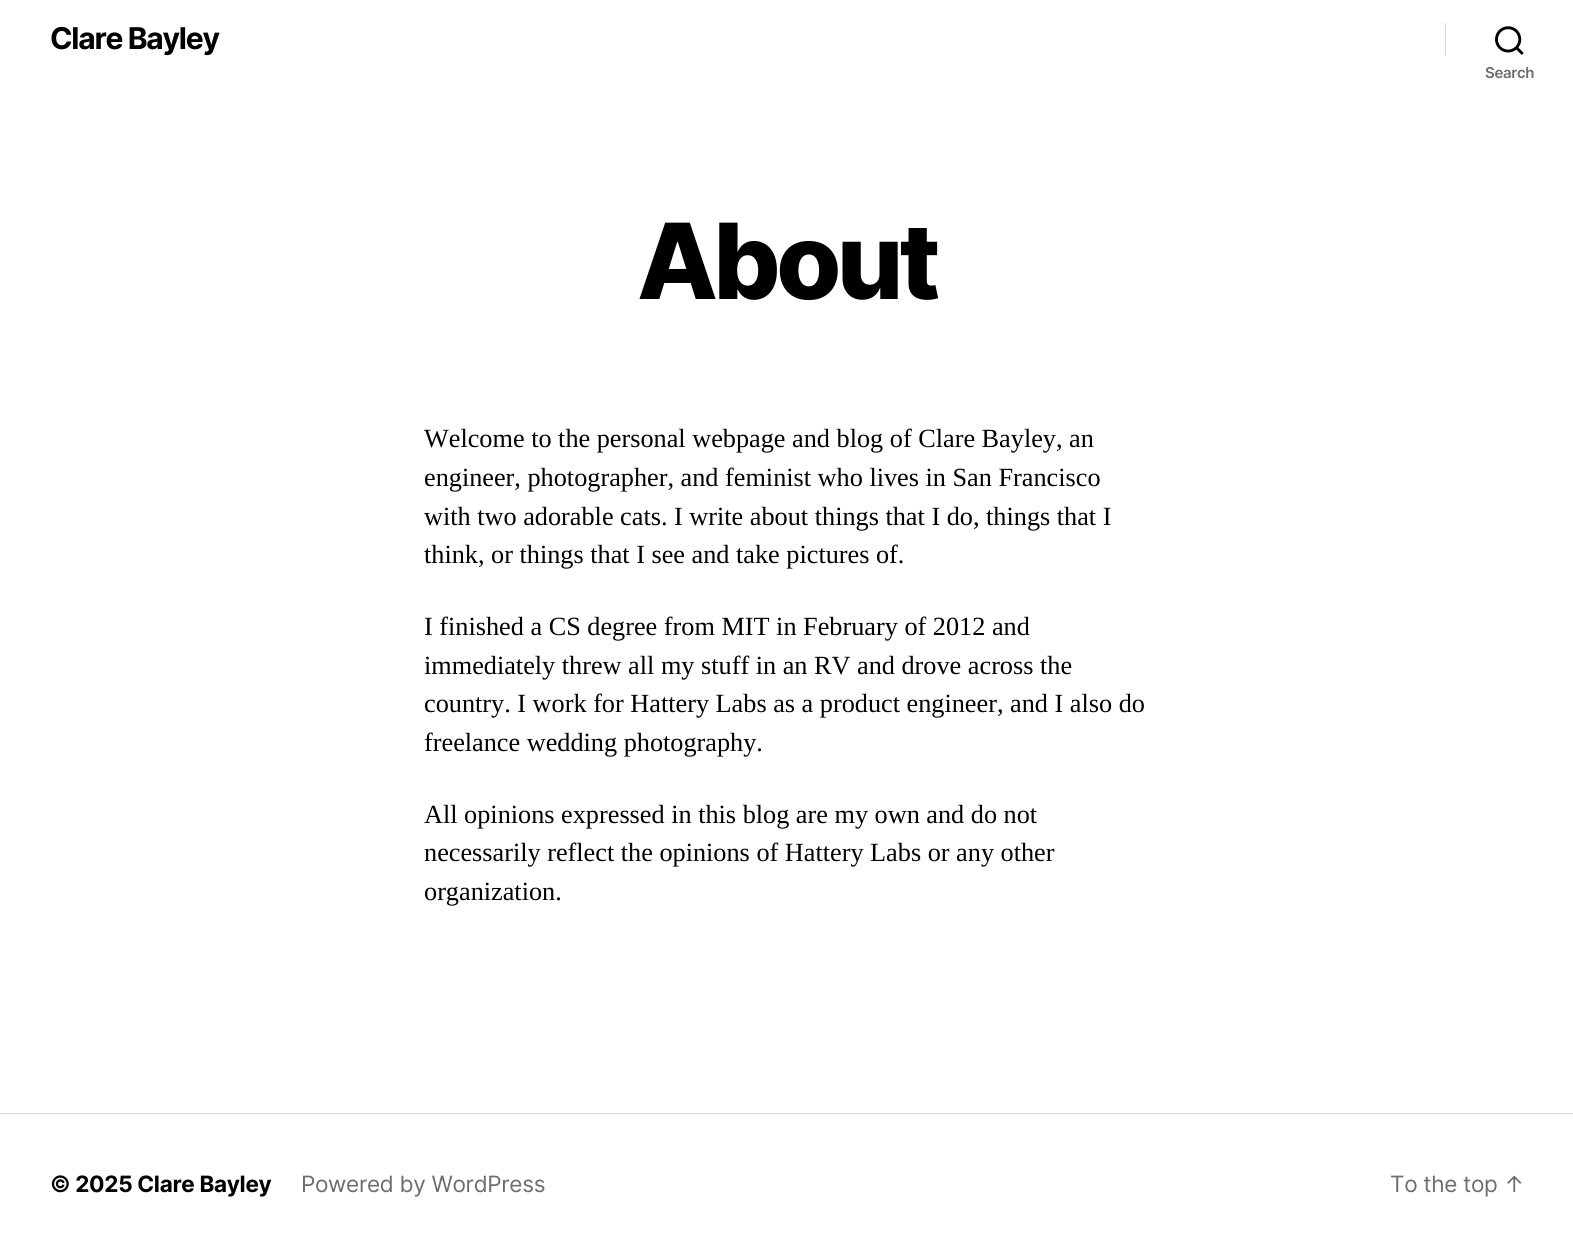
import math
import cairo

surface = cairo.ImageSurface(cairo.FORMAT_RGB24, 1573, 1255)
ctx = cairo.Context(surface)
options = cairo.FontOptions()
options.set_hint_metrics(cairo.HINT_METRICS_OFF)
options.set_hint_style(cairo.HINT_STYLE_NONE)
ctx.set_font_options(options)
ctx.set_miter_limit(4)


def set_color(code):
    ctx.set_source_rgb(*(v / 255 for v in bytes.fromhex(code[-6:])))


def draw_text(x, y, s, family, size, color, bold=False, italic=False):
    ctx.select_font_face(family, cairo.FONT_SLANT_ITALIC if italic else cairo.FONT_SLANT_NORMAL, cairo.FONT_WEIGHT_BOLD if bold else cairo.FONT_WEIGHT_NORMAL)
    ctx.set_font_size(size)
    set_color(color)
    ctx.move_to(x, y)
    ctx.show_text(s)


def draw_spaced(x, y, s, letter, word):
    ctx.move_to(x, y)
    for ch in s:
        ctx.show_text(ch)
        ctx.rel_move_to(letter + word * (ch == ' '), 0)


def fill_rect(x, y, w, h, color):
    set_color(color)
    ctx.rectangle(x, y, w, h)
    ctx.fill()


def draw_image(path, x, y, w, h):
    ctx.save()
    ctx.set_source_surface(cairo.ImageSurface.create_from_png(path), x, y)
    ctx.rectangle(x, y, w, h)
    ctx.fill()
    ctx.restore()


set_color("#ffffff")
ctx.paint()
ctx.select_font_face("Inter", cairo.FONT_SLANT_NORMAL, cairo.FONT_WEIGHT_BOLD)
ctx.set_font_size(30)
set_color("#000000")
draw_spaced(50, 49, "Clare Bayley", -1.25, 0)
fill_rect(1445, 23, 1, 33, "#dcd7ca")
draw_image("assets/img1.png", 1495, 26, 29, 29)
ctx.select_font_face("Inter SemiBold")
ctx.set_font_size(15)
set_color("#6d6d6d")
draw_spaced(1485, 78, "Search", -0.3, 0)
ctx.select_font_face("Inter ExtraBold")
ctx.set_font_size(105)
set_color("#000000")
draw_spaced(637, 299, "About", -4.5, 0)
draw_text(424, 447, "Welcome to the personal webpage and blog of Clare Bayley, an", "Liberation Serif", 26.25, "#000000")
draw_text(424, 486, "engineer, photographer, and feminist who lives in San Francisco", "Liberation Serif", 26.25, "#000000")
draw_text(424, 525, "with two adorable cats. I write about things that I do, things that I", "Liberation Serif", 26.25, "#000000")
draw_text(424, 563, "think, or things that I see and take pictures of.", "Liberation Serif", 26.25, "#000000")
draw_text(424, 635, "I finished a CS degree from MIT in February of 2012 and", "Liberation Serif", 26.25, "#000000")
draw_text(424, 674, "immediately threw all my stuff in an RV and drove across the", "Liberation Serif", 26.25, "#000000")
draw_text(424, 712, "country. I work for Hattery Labs as a product engineer, and I also do", "Liberation Serif", 26.25, "#000000")
draw_text(424, 751, "freelance wedding photography.", "Liberation Serif", 26.25, "#000000")
draw_text(424, 823, "All opinions expressed in this blog are my own and do not", "Liberation Serif", 26.25, "#000000")
draw_text(424, 861, "necessarily reflect the opinions of Hattery Labs or any other", "Liberation Serif", 26.25, "#000000")
draw_text(424, 900, "organization.", "Liberation Serif", 26.25, "#000000")
fill_rect(0, 1113, 1573, 1, "#dcd7ca")
ctx.select_font_face("Inter", cairo.FONT_SLANT_NORMAL, cairo.FONT_WEIGHT_BOLD)
ctx.set_font_size(22.5)
set_color("#000000")
draw_spaced(50, 1192, "© 2025 Clare Bayley", -0.3, 0)
ctx.select_font_face("Inter")
set_color("#6d6d6d")
draw_spaced(301, 1192, "Powered by WordPress", -0.3, 0)
draw_spaced(1390, 1192, "To the top ↑", -0.3, 0)
surface.write_to_png("output.png")
